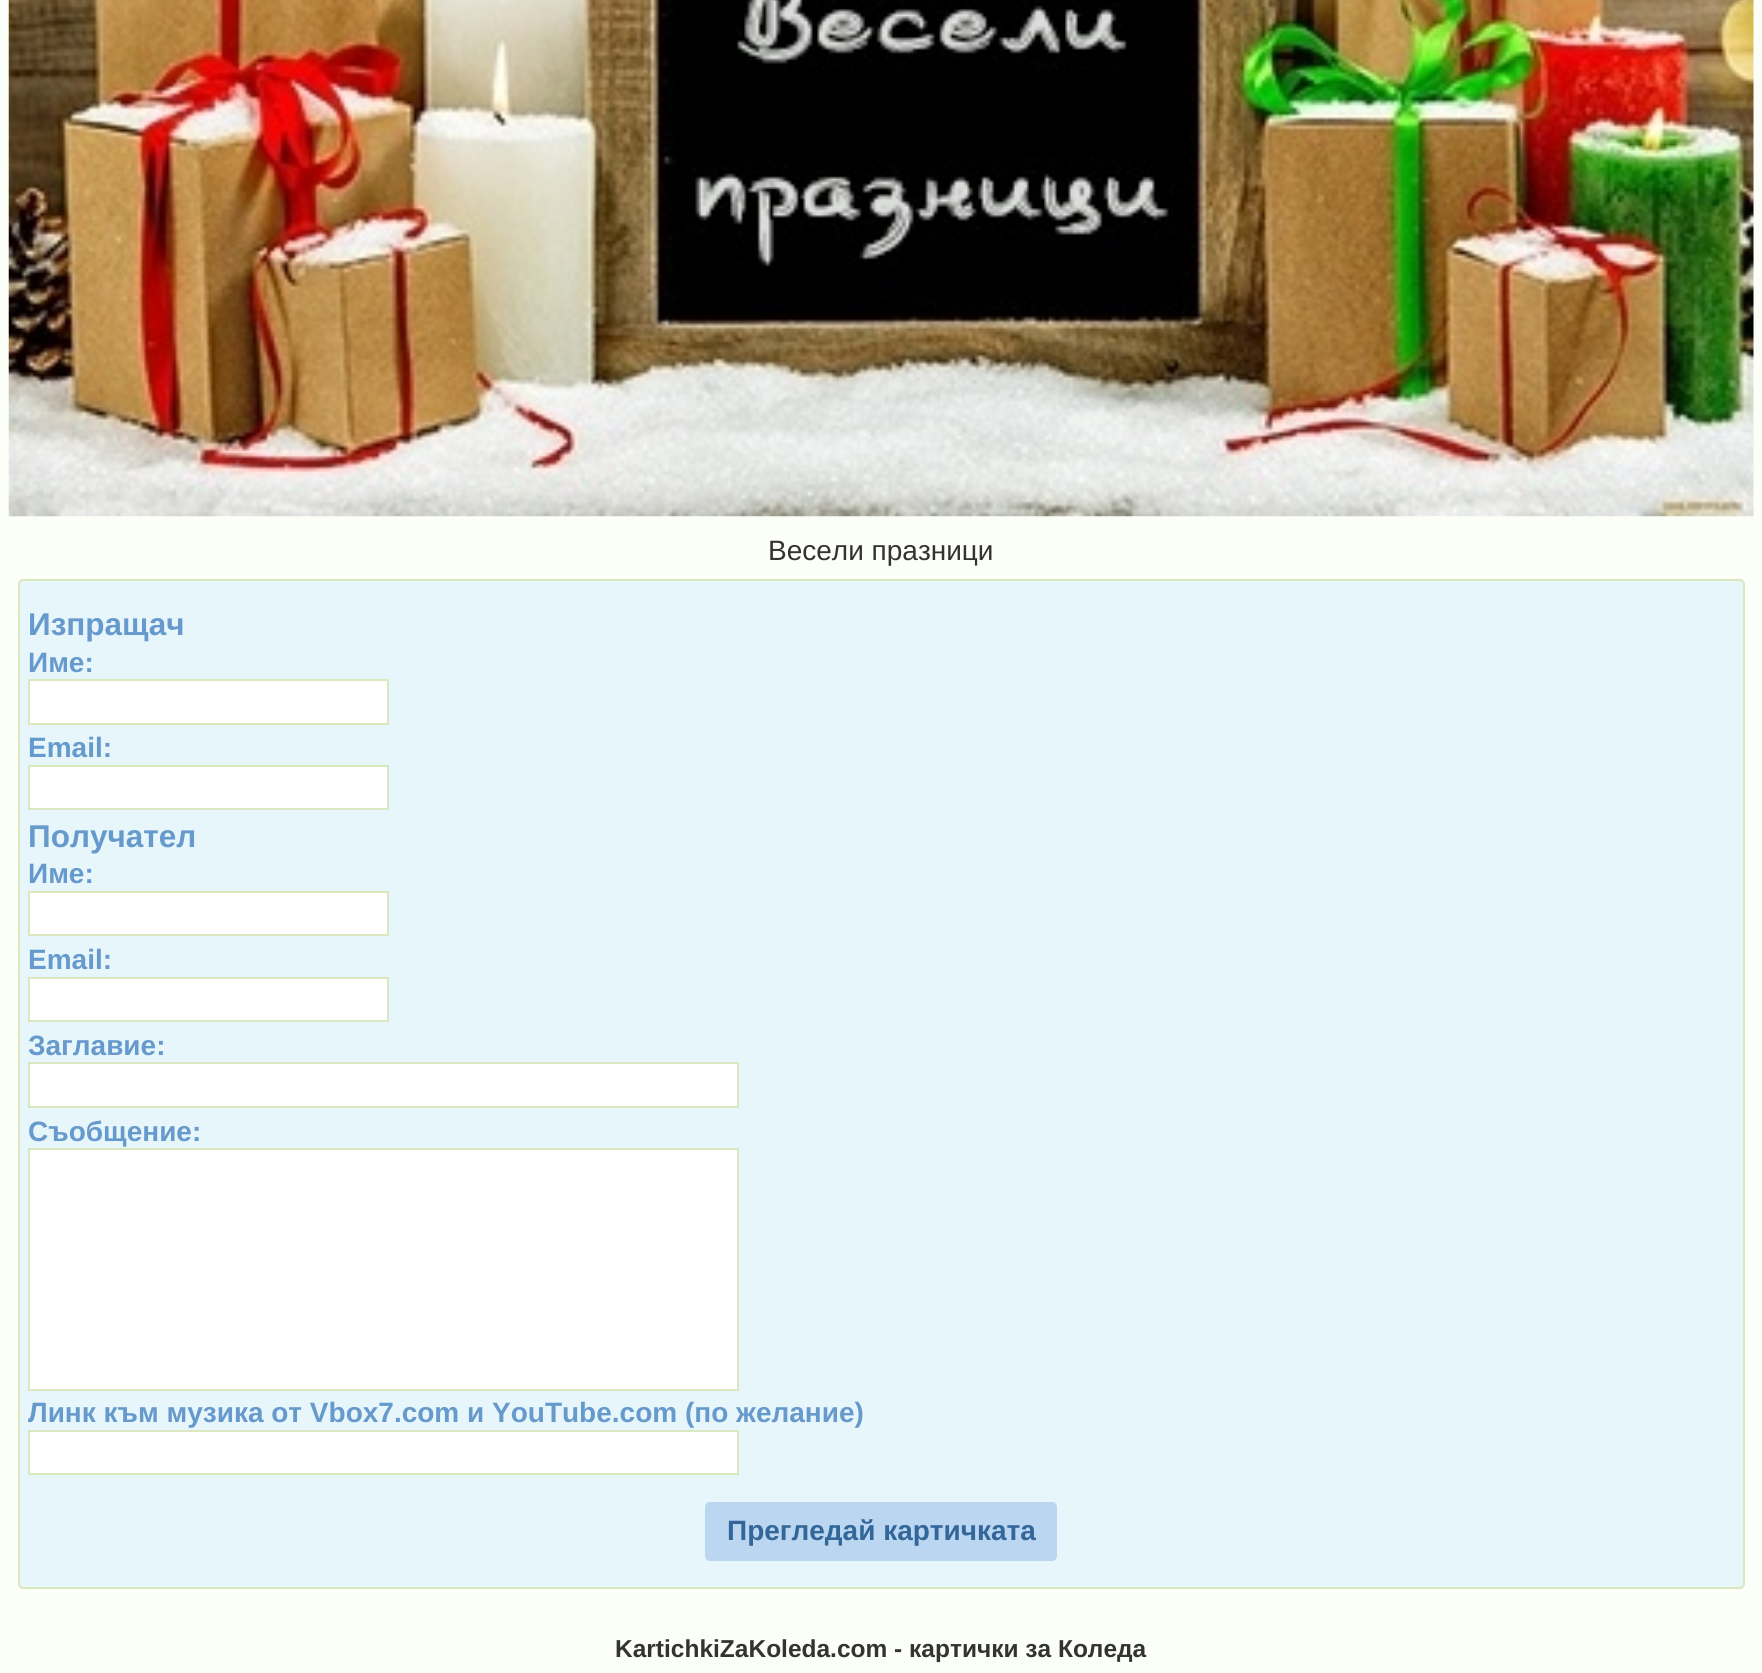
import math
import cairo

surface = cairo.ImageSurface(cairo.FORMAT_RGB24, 1762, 1673)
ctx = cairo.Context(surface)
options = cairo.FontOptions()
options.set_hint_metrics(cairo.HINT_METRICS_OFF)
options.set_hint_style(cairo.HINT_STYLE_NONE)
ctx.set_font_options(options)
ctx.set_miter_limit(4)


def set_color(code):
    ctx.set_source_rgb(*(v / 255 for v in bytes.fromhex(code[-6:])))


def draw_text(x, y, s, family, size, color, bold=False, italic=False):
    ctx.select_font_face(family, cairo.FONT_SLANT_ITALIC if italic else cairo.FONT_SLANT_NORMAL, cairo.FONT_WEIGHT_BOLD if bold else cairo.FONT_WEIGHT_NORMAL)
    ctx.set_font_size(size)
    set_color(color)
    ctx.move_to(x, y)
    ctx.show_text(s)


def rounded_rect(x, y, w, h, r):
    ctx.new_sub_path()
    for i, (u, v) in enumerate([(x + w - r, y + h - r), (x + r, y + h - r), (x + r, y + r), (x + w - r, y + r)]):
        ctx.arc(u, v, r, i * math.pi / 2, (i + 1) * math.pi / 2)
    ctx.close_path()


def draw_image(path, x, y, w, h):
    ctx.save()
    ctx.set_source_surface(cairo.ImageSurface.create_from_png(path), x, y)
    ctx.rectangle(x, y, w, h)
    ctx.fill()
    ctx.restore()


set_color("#fbfff7")
ctx.paint()
draw_image("assets/img1.png", 8, 0, 1746, 517)
draw_text(768, 560, "Весели празници", "Liberation Sans", 28, "#333333")
set_color("#e7f6fb")
rounded_rect(19, 580, 1725, 1008, 4)
ctx.fill_preserve()
set_color("#dbe7bf")
ctx.stroke()
draw_text(28, 635, "Изпращач", "Liberation Sans", 31.5, "#6699cc", bold=True)
draw_text(28, 672, "Име:", "Liberation Sans", 28, "#6699cc", bold=True)
set_color("#ffffff")
ctx.rectangle(29, 680, 359, 44)
ctx.fill_preserve()
set_color("#dbe7bf")
ctx.stroke()
draw_text(28, 757, "Email:", "Liberation Sans", 28, "#6699cc", bold=True)
set_color("#ffffff")
ctx.rectangle(29, 766, 359, 43)
ctx.fill_preserve()
set_color("#dbe7bf")
ctx.stroke()
draw_text(28, 847, "Получател", "Liberation Sans", 31.5, "#6699cc", bold=True)
draw_text(28, 883, "Име:", "Liberation Sans", 28, "#6699cc", bold=True)
set_color("#ffffff")
ctx.rectangle(29, 892, 359, 43)
ctx.fill_preserve()
set_color("#dbe7bf")
ctx.stroke()
draw_text(28, 969, "Email:", "Liberation Sans", 28, "#6699cc", bold=True)
set_color("#ffffff")
ctx.rectangle(29, 978, 359, 43)
ctx.fill_preserve()
set_color("#dbe7bf")
ctx.stroke()
draw_text(28, 1055, "Заглавие:", "Liberation Sans", 28, "#6699cc", bold=True)
set_color("#ffffff")
ctx.rectangle(29, 1063, 709, 44)
ctx.fill_preserve()
set_color("#dbe7bf")
ctx.stroke()
draw_text(28, 1141, "Съобщение:", "Liberation Sans", 28, "#6699cc", bold=True)
set_color("#ffffff")
ctx.rectangle(29, 1149, 709, 241)
ctx.fill_preserve()
set_color("#dbe7bf")
ctx.stroke()
draw_text(28, 1422, "Линк към музика от Vbox7.com и YouTube.com (по желание)", "Liberation Sans", 28, "#6699cc", bold=True)
set_color("#ffffff")
ctx.rectangle(29, 1431, 709, 43)
ctx.fill_preserve()
set_color("#dbe7bf")
ctx.stroke()
set_color("#bbd6f1")
rounded_rect(705, 1502, 352, 59, 5)
ctx.fill()
draw_text(727, 1540, "Прегледай картичката", "Liberation Sans", 28, "#336699", bold=True)
draw_text(615, 1657, "KartichkiZaKoleda.com - картички за Коледа", "Liberation Sans", 24.5, "#333333", bold=True)
surface.write_to_png("output.png")
